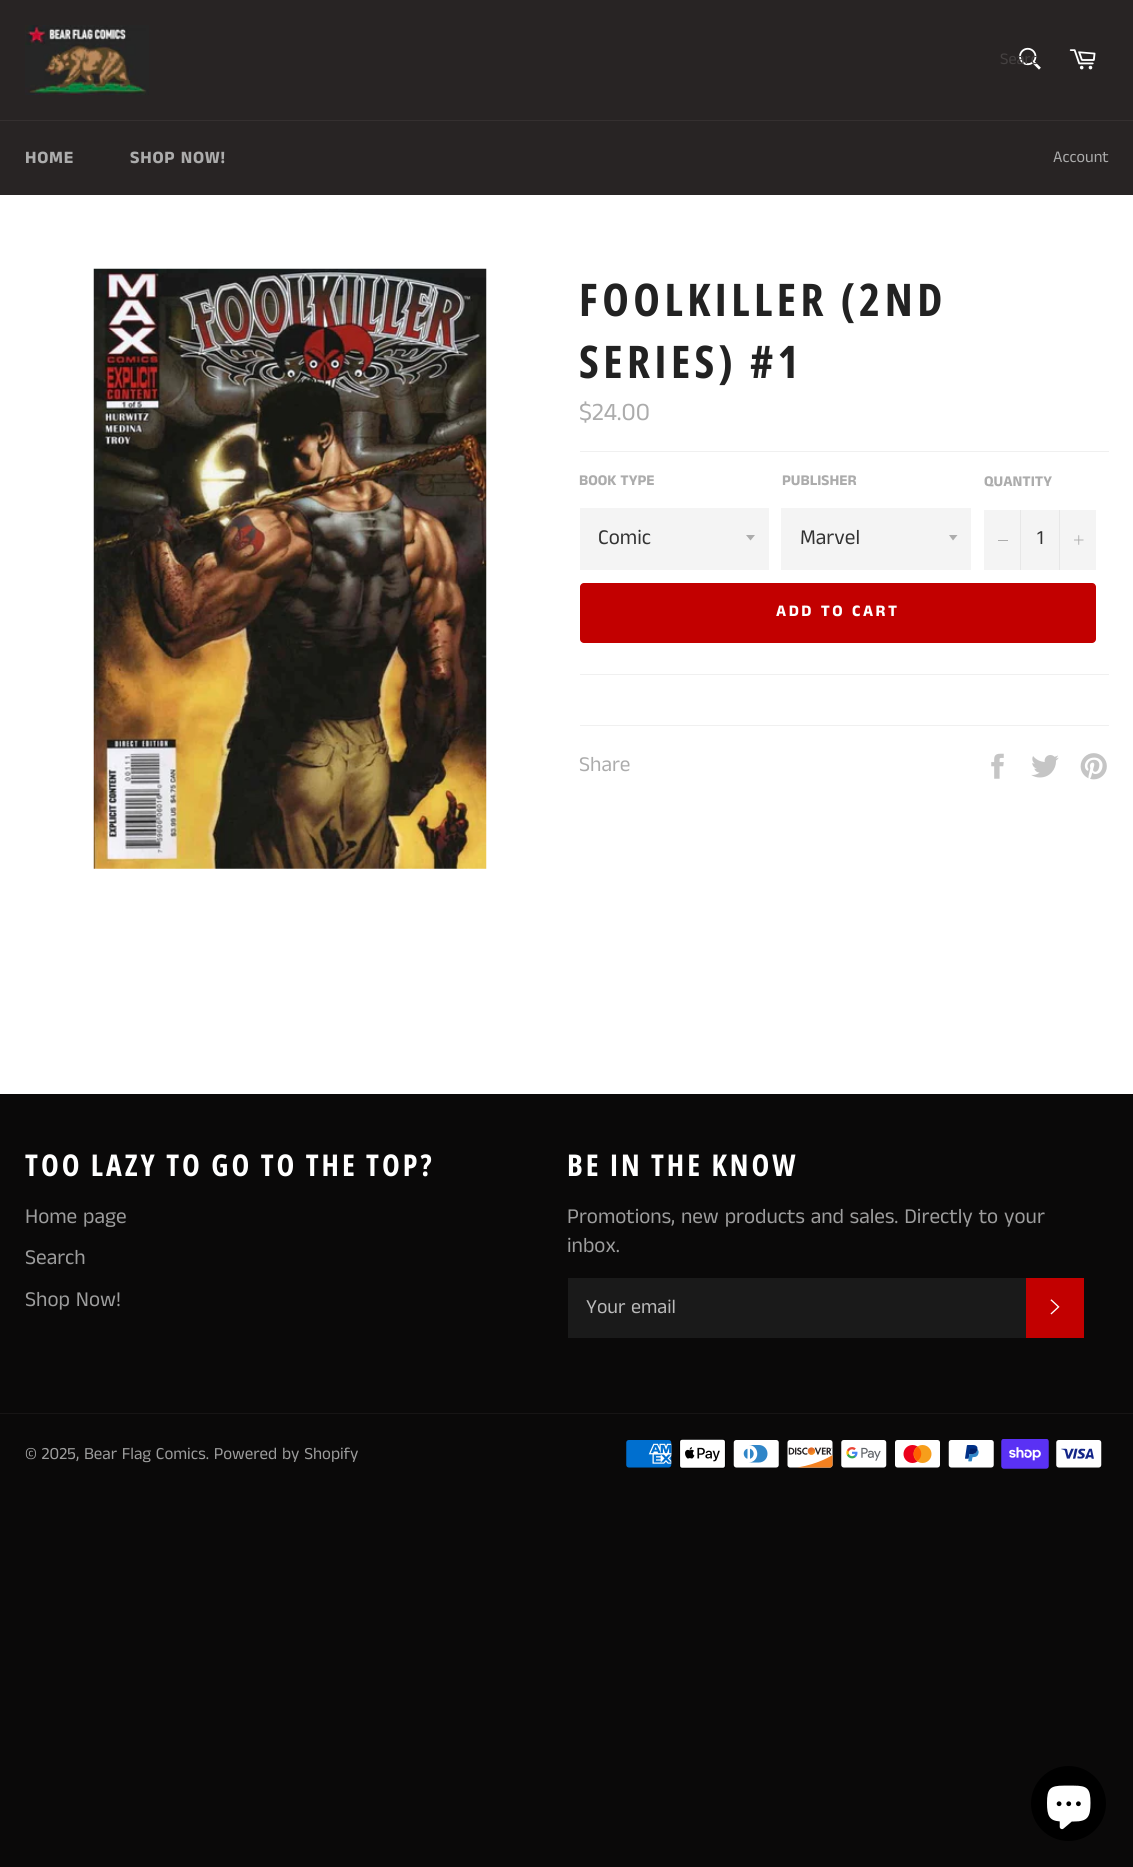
import math
import cairo

surface = cairo.ImageSurface(cairo.FORMAT_RGB24, 1133, 1867)
ctx = cairo.Context(surface)
options = cairo.FontOptions()
options.set_hint_metrics(cairo.HINT_METRICS_OFF)
options.set_hint_style(cairo.HINT_STYLE_NONE)
ctx.set_font_options(options)
ctx.set_miter_limit(4)


def set_color(code):
    ctx.set_source_rgb(*(v / 255 for v in bytes.fromhex(code[-6:])))


def draw_text(x, y, s, family, size, color, bold=False, italic=False):
    ctx.select_font_face(family, cairo.FONT_SLANT_ITALIC if italic else cairo.FONT_SLANT_NORMAL, cairo.FONT_WEIGHT_BOLD if bold else cairo.FONT_WEIGHT_NORMAL)
    ctx.set_font_size(size)
    set_color(color)
    ctx.move_to(x, y)
    ctx.show_text(s)


def draw_spaced(x, y, s, letter, word):
    ctx.move_to(x, y)
    for ch in s:
        ctx.show_text(ch)
        ctx.rel_move_to(letter + word * (ch == ' '), 0)


def fill_rect(x, y, w, h, color):
    set_color(color)
    ctx.rectangle(x, y, w, h)
    ctx.fill()


def rounded_rect(x, y, w, h, r):
    ctx.new_sub_path()
    for i, (u, v) in enumerate([(x + w - r, y + h - r), (x + r, y + h - r), (x + r, y + r), (x + w - r, y + r)]):
        ctx.arc(u, v, r, i * math.pi / 2, (i + 1) * math.pi / 2)
    ctx.close_path()


def draw_image(path, x, y, w, h):
    ctx.save()
    ctx.set_source_surface(cairo.ImageSurface.create_from_png(path), x, y)
    ctx.rectangle(x, y, w, h)
    ctx.fill()
    ctx.restore()


set_color("#0a0909")
ctx.paint()
fill_rect(0, 0, 1133, 120, "#282424")
draw_image("assets/img1.png", 25, 25, 124, 70)
draw_image("assets/img2.png", 1019, 47, 22, 23)
draw_text(1000, 64, "Searc", "Anek Tamil", 16.25, "#454141")
draw_image("assets/img3.png", 1069, 49, 27, 21)
fill_rect(0, 121, 1133, 74, "#282424")
fill_rect(0, 120, 1133, 1, "#353030")
ctx.select_font_face("Anek Tamil", cairo.FONT_SLANT_NORMAL, cairo.FONT_WEIGHT_BOLD)
ctx.set_font_size(17.5)
set_color("#acacac")
draw_spaced(25, 163, "HOME", 0.75, 0)
draw_spaced(130, 163, "SHOP NOW!", 0.75, 0)
draw_text(1053, 162, "Account", "Anek Tamil", 16.25, "#acacac")
fill_rect(0, 195, 1133, 899, "#ffffff")
draw_image("assets/img4.png", 93, 268, 394, 601)
ctx.select_font_face("Open Sans Condensed", cairo.FONT_SLANT_NORMAL, cairo.FONT_WEIGHT_BOLD)
ctx.set_font_size(45)
set_color("#222222")
draw_spaced(579, 316, "FOOLKILLER (2ND", 4.5, 0)
draw_spaced(579, 378, "SERIES) #1", 4.5, 0)
draw_text(579, 420, "$24.00", "Anek Tamil", 25, "#acacac")
fill_rect(580, 451, 529, 1, "#f0f0f0")
draw_text(579, 485, "BOOK TYPE", "Anek Tamil", 15, "#acacac", bold=True)
fill_rect(580, 508, 189, 62, "#f4f4f4")
set_color("#acacac")
ctx.new_path()
ctx.move_to(746, 535)
ctx.line_to(750.5, 540.5)
ctx.line_to(755, 535)
ctx.close_path()
ctx.fill()
draw_text(598, 544, "Comic", "Anek Tamil", 21.25, "#333333")
draw_text(782, 485, "PUBLISHER", "Anek Tamil", 15, "#acacac", bold=True)
fill_rect(781, 508, 190, 62, "#f4f4f4")
set_color("#acacac")
ctx.new_path()
ctx.move_to(949, 535)
ctx.line_to(953, 540.5)
ctx.line_to(957.5, 535)
ctx.close_path()
ctx.fill()
draw_text(800, 544, "Marvel", "Anek Tamil", 21.25, "#333333")
draw_text(984, 486, "QUANTITY", "Anek Tamil", 15, "#acacac", bold=True)
fill_rect(984, 510, 112, 60, "#f4f4f4")
fill_rect(1020, 510, 1, 60, "#e7e7e7")
fill_rect(998, 540, 10, 1, "#acacac")
draw_text(1037, 544, "1", "Anek Tamil", 20, "#333333")
fill_rect(1059, 510, 1, 60, "#e7e7e7")
draw_image("assets/img5.png", 1074, 535, 10, 10)
set_color("#c20000")
rounded_rect(580, 583, 516, 60, 4)
ctx.fill()
ctx.select_font_face("Anek Tamil", cairo.FONT_SLANT_NORMAL, cairo.FONT_WEIGHT_BOLD)
ctx.set_font_size(16.25)
set_color("#ffffff")
draw_spaced(776, 616, "ADD TO CART", 2.5, 0)
fill_rect(580, 674, 529, 1, "#f0f0f0")
fill_rect(580, 725, 529, 1, "#f0f0f0")
draw_text(579, 771, "Share", "Anek Tamil", 21.25, "#acacac")
draw_image("assets/img6.png", 991, 753, 13, 26)
draw_image("assets/img7.png", 1031, 755, 28, 23)
draw_image("assets/img8.png", 1080, 753, 27, 27)
ctx.select_font_face("Open Sans Condensed", cairo.FONT_SLANT_NORMAL, cairo.FONT_WEIGHT_BOLD)
ctx.set_font_size(30)
set_color("#ffffff")
draw_spaced(25, 1176, "TOO LAZY TO GO TO THE TOP?", 3, 0)
draw_text(25, 1223, "Home page", "Anek Tamil", 21.25, "#9d9d9d")
draw_text(25, 1264, "Search", "Anek Tamil", 21.25, "#9d9d9d")
draw_text(25, 1306, "Shop Now!", "Anek Tamil", 21.25, "#9d9d9d")
ctx.select_font_face("Open Sans Condensed", cairo.FONT_SLANT_NORMAL, cairo.FONT_WEIGHT_BOLD)
ctx.set_font_size(30)
set_color("#ffffff")
draw_spaced(567, 1176, "BE IN THE KNOW", 3, 0)
draw_text(567, 1223, "Promotions, new products and sales. Directly to your", "Anek Tamil", 21.25, "#9d9d9d")
draw_text(567, 1252, "inbox.", "Anek Tamil", 21.25, "#9d9d9d")
fill_rect(568, 1278, 458, 60, "#1a1a1a")
draw_text(586, 1313, "Your email", "Anek Tamil", 20, "#bababa")
fill_rect(1026, 1278, 58, 60, "#c20000")
draw_image("assets/img9.png", 1050, 1299, 10, 16)
fill_rect(0, 1413, 1133, 1, "#171515")
draw_text(25, 1459, "© 2025, Bear Flag Comics. Powered by Shopify", "Anek Tamil", 17, "#9d9d9d")
draw_image("assets/img10.png", 626, 1440, 46, 28)
draw_image("assets/img11.png", 679, 1439, 47, 30)
draw_image("assets/img12.png", 733, 1440, 46, 28)
draw_image("assets/img13.png", 787, 1440, 46, 28)
draw_image("assets/img14.png", 841, 1440, 46, 28)
draw_image("assets/img15.png", 895, 1440, 45, 28)
draw_image("assets/img16.png", 948, 1440, 46, 28)
draw_image("assets/img17.png", 1001, 1439, 48, 30)
draw_image("assets/img18.png", 1056, 1440, 46, 28)
set_color("#000000")
ctx.arc(1068.5, 1803.5, 37.5, 0, 2 * math.pi)
ctx.fill()
draw_image("assets/img19.png", 1047, 1785, 44, 45)
surface.write_to_png("output.png")
